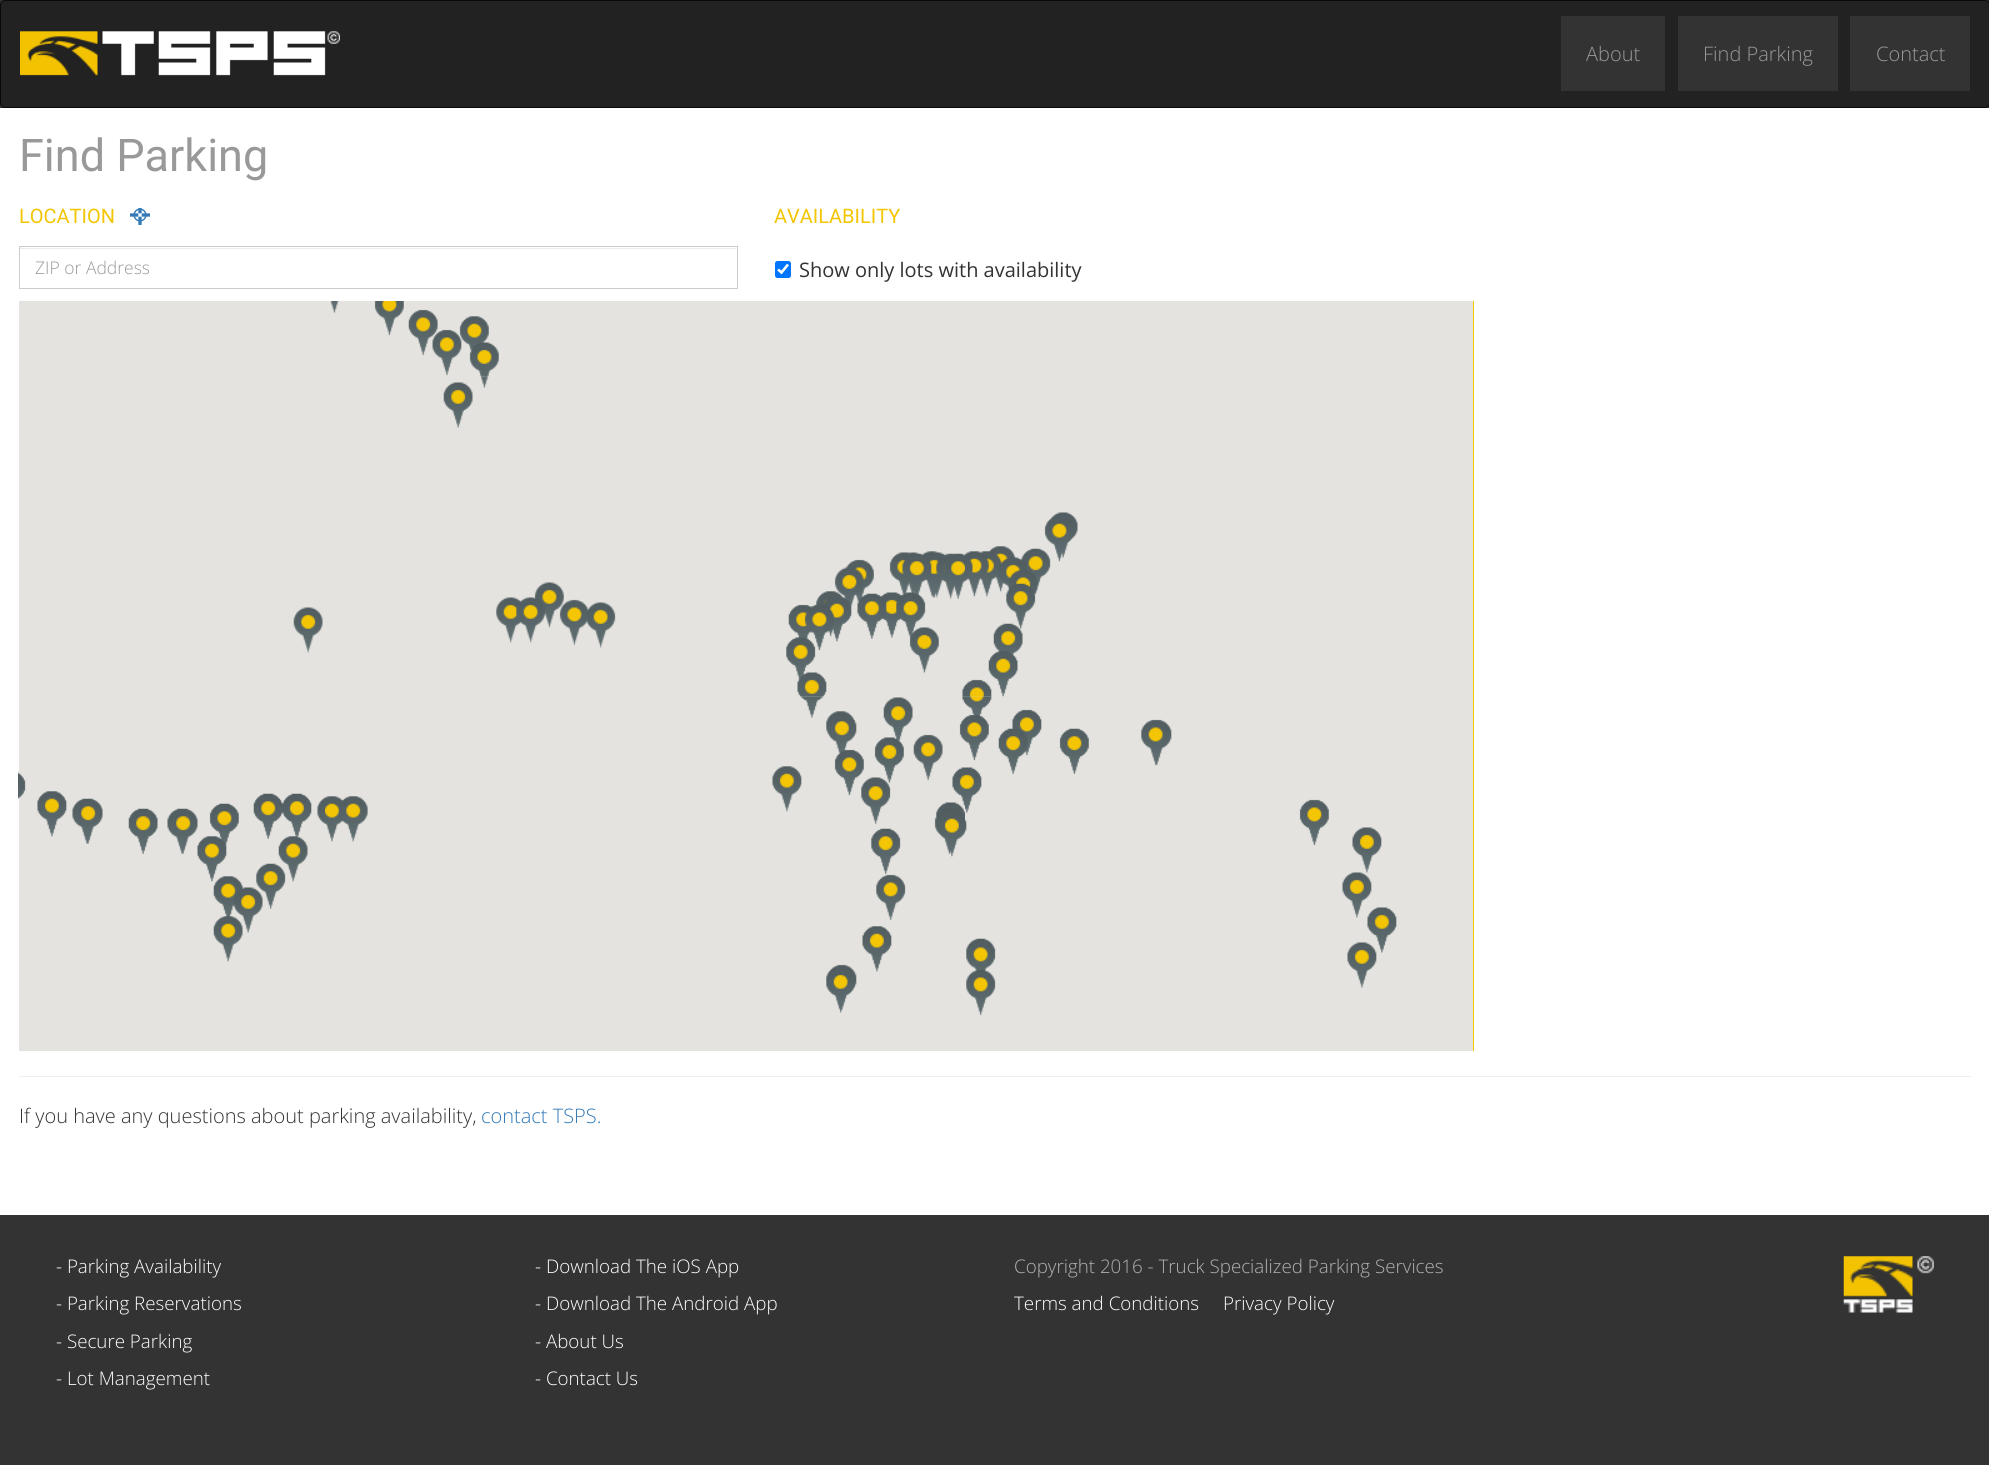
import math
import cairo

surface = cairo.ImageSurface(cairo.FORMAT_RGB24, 1989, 1465)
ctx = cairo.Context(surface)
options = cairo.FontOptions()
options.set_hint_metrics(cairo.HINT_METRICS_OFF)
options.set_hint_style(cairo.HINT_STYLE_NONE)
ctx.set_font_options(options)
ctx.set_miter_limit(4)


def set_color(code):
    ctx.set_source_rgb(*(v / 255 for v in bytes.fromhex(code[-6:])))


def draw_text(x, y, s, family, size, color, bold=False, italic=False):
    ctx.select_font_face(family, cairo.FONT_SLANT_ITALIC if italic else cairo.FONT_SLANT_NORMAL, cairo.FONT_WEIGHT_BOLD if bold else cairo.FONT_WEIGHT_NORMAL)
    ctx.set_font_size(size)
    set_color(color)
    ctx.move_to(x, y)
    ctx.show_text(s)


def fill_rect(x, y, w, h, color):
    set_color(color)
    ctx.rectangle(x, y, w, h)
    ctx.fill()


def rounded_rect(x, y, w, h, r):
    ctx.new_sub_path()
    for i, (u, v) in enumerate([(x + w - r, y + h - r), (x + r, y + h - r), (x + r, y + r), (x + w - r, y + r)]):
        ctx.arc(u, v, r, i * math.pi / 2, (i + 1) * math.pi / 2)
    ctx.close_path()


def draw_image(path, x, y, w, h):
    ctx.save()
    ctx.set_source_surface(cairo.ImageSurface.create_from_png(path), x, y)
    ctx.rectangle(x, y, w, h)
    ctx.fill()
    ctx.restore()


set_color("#ffffff")
ctx.paint()
fill_rect(0, 0, 1989, 108, "#333333")
set_color("#222222")
rounded_rect(0.5, 0.5, 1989, 107, 4.5)
ctx.fill_preserve()
set_color("#090909")
ctx.set_line_width(1)
ctx.stroke()
draw_image("assets/img1.png", 20, 31, 320, 45)
fill_rect(1561, 16, 104, 75, "#333333")
draw_text(1586, 61, "About", "Open Sans Light", 20, "#999999")
fill_rect(1678, 16, 160, 75, "#333333")
draw_text(1703, 61, "Find Parking", "Open Sans Light", 20, "#999999")
fill_rect(1850, 16, 120, 75, "#333333")
draw_text(1876, 61, "Contact", "Open Sans Light", 20, "#999999")
draw_text(19, 171, "Find Parking", "Roboto", 45, "#999999")
draw_text(19, 223, "LOCATION", "Roboto", 20, "#f3c502")
draw_image("assets/img2.png", 130, 208, 20, 17)
fill_rect(20, 248, 716, 1, "#ececec")
ctx.rectangle(19.5, 246.5, 718, 42)
set_color("#cccccc")
ctx.stroke()
draw_text(35, 274, "ZIP or Address", "Open Sans Light", 17.5, "#999999")
draw_text(774, 223, "AVAILABILITY", "Roboto", 20, "#f3c502")
set_color("#0075ff")
rounded_rect(775, 261, 16, 17, 2.5)
ctx.fill()
ctx.new_path()
ctx.move_to(778, 269.5)
ctx.line_to(781.5, 272.5)
ctx.line_to(788, 264.5)
set_color("#ffffff")
ctx.set_line_width(2.6)
ctx.stroke()
draw_text(799, 277, "Show only lots with availability", "Open Sans", 20, "#343334")
fill_rect(1473, 301, 1, 750, "#f3c502")
fill_rect(19, 301, 1454, 750, "#e5e3df")
draw_image("assets/img5.png", 443, 376, 173, 272)
draw_image("assets/img3.png", 330, 301, 169, 76)
draw_image("assets/img4.png", 293, 607, 30, 46)
draw_image("assets/img10.png", 772, 696, 193, 317)
draw_image("assets/img6.png", 786, 551, 179, 146)
draw_image("assets/img7.png", 965, 512, 113, 185)
draw_image("assets/img8.png", 18, 772, 307, 190)
draw_image("assets/img9.png", 325, 796, 43, 46)
draw_image("assets/img11.png", 965, 696, 207, 320)
draw_image("assets/img12.png", 1299, 799, 98, 189)
fill_rect(19, 1076, 1952, 1, "#eeeeee")
draw_text(19, 1123, "If you have any questions about parking availability,", "Open Sans Light", 20, "#343334")
draw_text(481, 1123, "contact TSPS.", "Open Sans Light", 20, "#337ab7")
fill_rect(0, 1215, 1989, 250, "#333333")
draw_text(56, 1273, "- Parking Availability", "Open Sans Light", 18.75, "#ffffff")
draw_text(56, 1310, "- Parking Reservations", "Open Sans Light", 18.75, "#ffffff")
draw_text(56, 1348, "- Secure Parking", "Open Sans Light", 18.75, "#ffffff")
draw_text(56, 1385, "- Lot Management", "Open Sans Light", 18.75, "#ffffff")
draw_text(535, 1273, "- Download The iOS App", "Open Sans Light", 18.75, "#ffffff")
draw_text(535, 1310, "- Download The Android App", "Open Sans Light", 18.75, "#ffffff")
draw_text(535, 1348, "- About Us", "Open Sans Light", 18.75, "#ffffff")
draw_text(535, 1385, "- Contact Us", "Open Sans Light", 18.75, "#ffffff")
draw_text(1014, 1273, "Copyright 2016 - Truck Specialized Parking Services", "Open Sans Light", 18.75, "#b2b2b2")
draw_image("assets/img13.png", 1843, 1256, 91, 57)
draw_text(1014, 1310, "Terms and Conditions", "Open Sans Light", 18.75, "#ffffff")
draw_text(1223, 1310, "Privacy Policy", "Open Sans Light", 18.75, "#ffffff")
surface.write_to_png("output.png")
